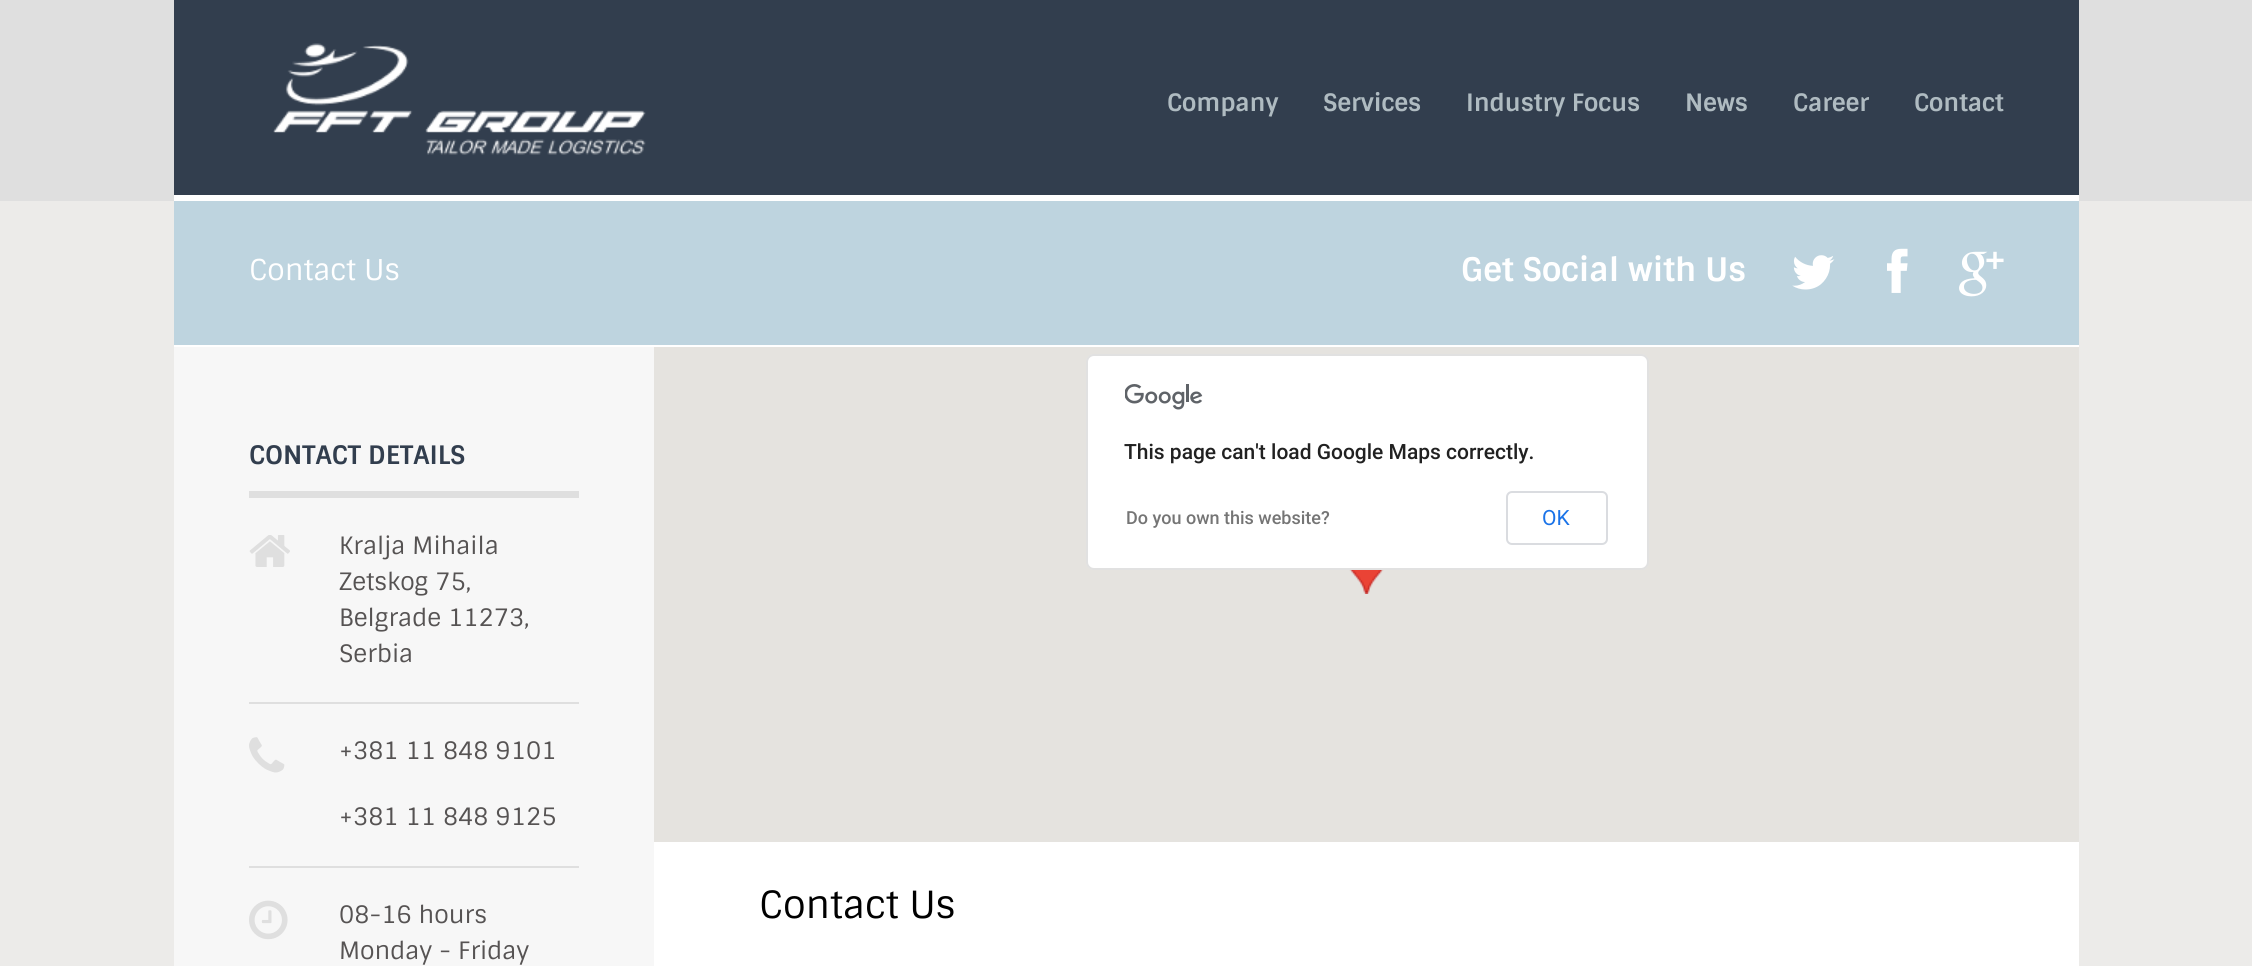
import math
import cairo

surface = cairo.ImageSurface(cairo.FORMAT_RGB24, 2252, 966)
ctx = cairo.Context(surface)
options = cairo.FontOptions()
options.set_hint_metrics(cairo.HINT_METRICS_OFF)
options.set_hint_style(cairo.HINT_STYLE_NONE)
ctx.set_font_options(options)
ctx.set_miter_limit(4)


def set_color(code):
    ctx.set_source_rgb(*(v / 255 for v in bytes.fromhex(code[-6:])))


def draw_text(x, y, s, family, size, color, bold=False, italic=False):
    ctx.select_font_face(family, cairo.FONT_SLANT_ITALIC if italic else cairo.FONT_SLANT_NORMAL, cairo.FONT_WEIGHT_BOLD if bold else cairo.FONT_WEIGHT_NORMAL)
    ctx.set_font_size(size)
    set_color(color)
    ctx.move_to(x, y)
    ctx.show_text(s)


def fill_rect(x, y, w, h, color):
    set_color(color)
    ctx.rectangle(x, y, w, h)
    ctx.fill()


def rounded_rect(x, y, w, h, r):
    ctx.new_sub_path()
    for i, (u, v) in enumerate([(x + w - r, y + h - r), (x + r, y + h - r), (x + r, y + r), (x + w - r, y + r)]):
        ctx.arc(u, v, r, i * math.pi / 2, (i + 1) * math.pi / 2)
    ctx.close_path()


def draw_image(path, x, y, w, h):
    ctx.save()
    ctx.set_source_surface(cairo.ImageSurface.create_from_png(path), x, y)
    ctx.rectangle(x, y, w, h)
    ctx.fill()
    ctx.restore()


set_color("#ecebe9")
ctx.paint()
fill_rect(0, 0, 2252, 201, "#dfdfdf")
fill_rect(174, 0, 1905, 195, "#323e4e")
fill_rect(174, 195, 1905, 6, "#ffffff")
draw_image("assets/img1.png", 273, 43, 373, 112)
draw_text(1167, 111, "Company", "Sintony", 24, "#afbbc1", bold=True)
draw_text(1323, 111, "Services", "Sintony", 24, "#afbbc1", bold=True)
draw_text(1466, 111, "Industry Focus", "Sintony", 24, "#afbbc1", bold=True)
draw_text(1685, 111, "News", "Sintony", 24, "#afbbc1", bold=True)
draw_text(1793, 111, "Career", "Sintony", 24, "#afbbc1", bold=True)
draw_text(1914, 111, "Contact", "Sintony", 24, "#afbbc1", bold=True)
fill_rect(174, 201, 1905, 144, "#bed4df")
draw_text(249, 280, "Contact Us", "Sintony", 28.75, "#ffffff")
draw_text(1461, 281, "Get Social with Us", "Sintony", 32.5, "#ffffff", bold=True)
draw_image("assets/img2.png", 1792, 255, 43, 35)
draw_image("assets/img3.png", 1887, 248, 21, 45)
draw_image("assets/img4.png", 1959, 251, 45, 46)
fill_rect(174, 345, 1905, 621, "#ffffff")
fill_rect(174, 347, 480, 619, "#f7f7f7")
fill_rect(249, 491, 330, 7, "#dfdfdf")
draw_text(249, 464, "CONTACT DETAILS", "Sintony", 25.5, "#323e4e", bold=True)
fill_rect(249, 702, 330, 2, "#dfdfdf")
draw_image("assets/img5.png", 249, 535, 41, 32)
draw_text(339, 554, "Kralja Mihaila", "Sintony", 24, "#565353")
draw_text(339, 590, "Zetskog 75,", "Sintony", 24, "#565353")
draw_text(339, 626, "Belgrade 11273,", "Sintony", 24, "#565353")
draw_text(339, 662, "Serbia", "Sintony", 24, "#565353")
fill_rect(249, 866, 330, 2, "#dfdfdf")
draw_image("assets/img6.png", 249, 737, 36, 36)
draw_text(339, 759, "+381 11 848 9101", "Sintony", 24, "#565353")
draw_text(339, 825, "+381 11 848 9125", "Sintony", 24, "#565353")
draw_image("assets/img7.png", 249, 900, 39, 40)
draw_text(339, 923, "08-16 hours", "Sintony", 24, "#565353")
draw_text(339, 959, "Monday - Friday", "Sintony", 24, "#565353")
fill_rect(654, 347, 1425, 495, "#e5e3df")
draw_image("assets/img8.png", 1349, 570, 35, 24)
set_color("#ffffff")
rounded_rect(1086, 354, 563, 216, 8)
ctx.fill()
rounded_rect(1087, 355, 561, 214, 7)
ctx.set_source_rgba(0, 0, 0, 0.12)
ctx.stroke()
draw_image("assets/img9.png", 1125, 384, 78, 26)
draw_text(1124, 459, "This page can't load Google Maps correctly.", "Roboto Medium", 21, "#212121")
draw_text(1126, 524, "Do you own this website?", "Roboto Medium", 18, "#757575")
rounded_rect(1507, 492, 100, 52, 5)
set_color("#dadce0")
ctx.stroke()
draw_text(1542, 525, "OK", "Roboto", 21, "#1a73e8")
draw_text(759, 918, "Contact Us", "Sintony", 37.5, "#000000")
surface.write_to_png("output.png")
